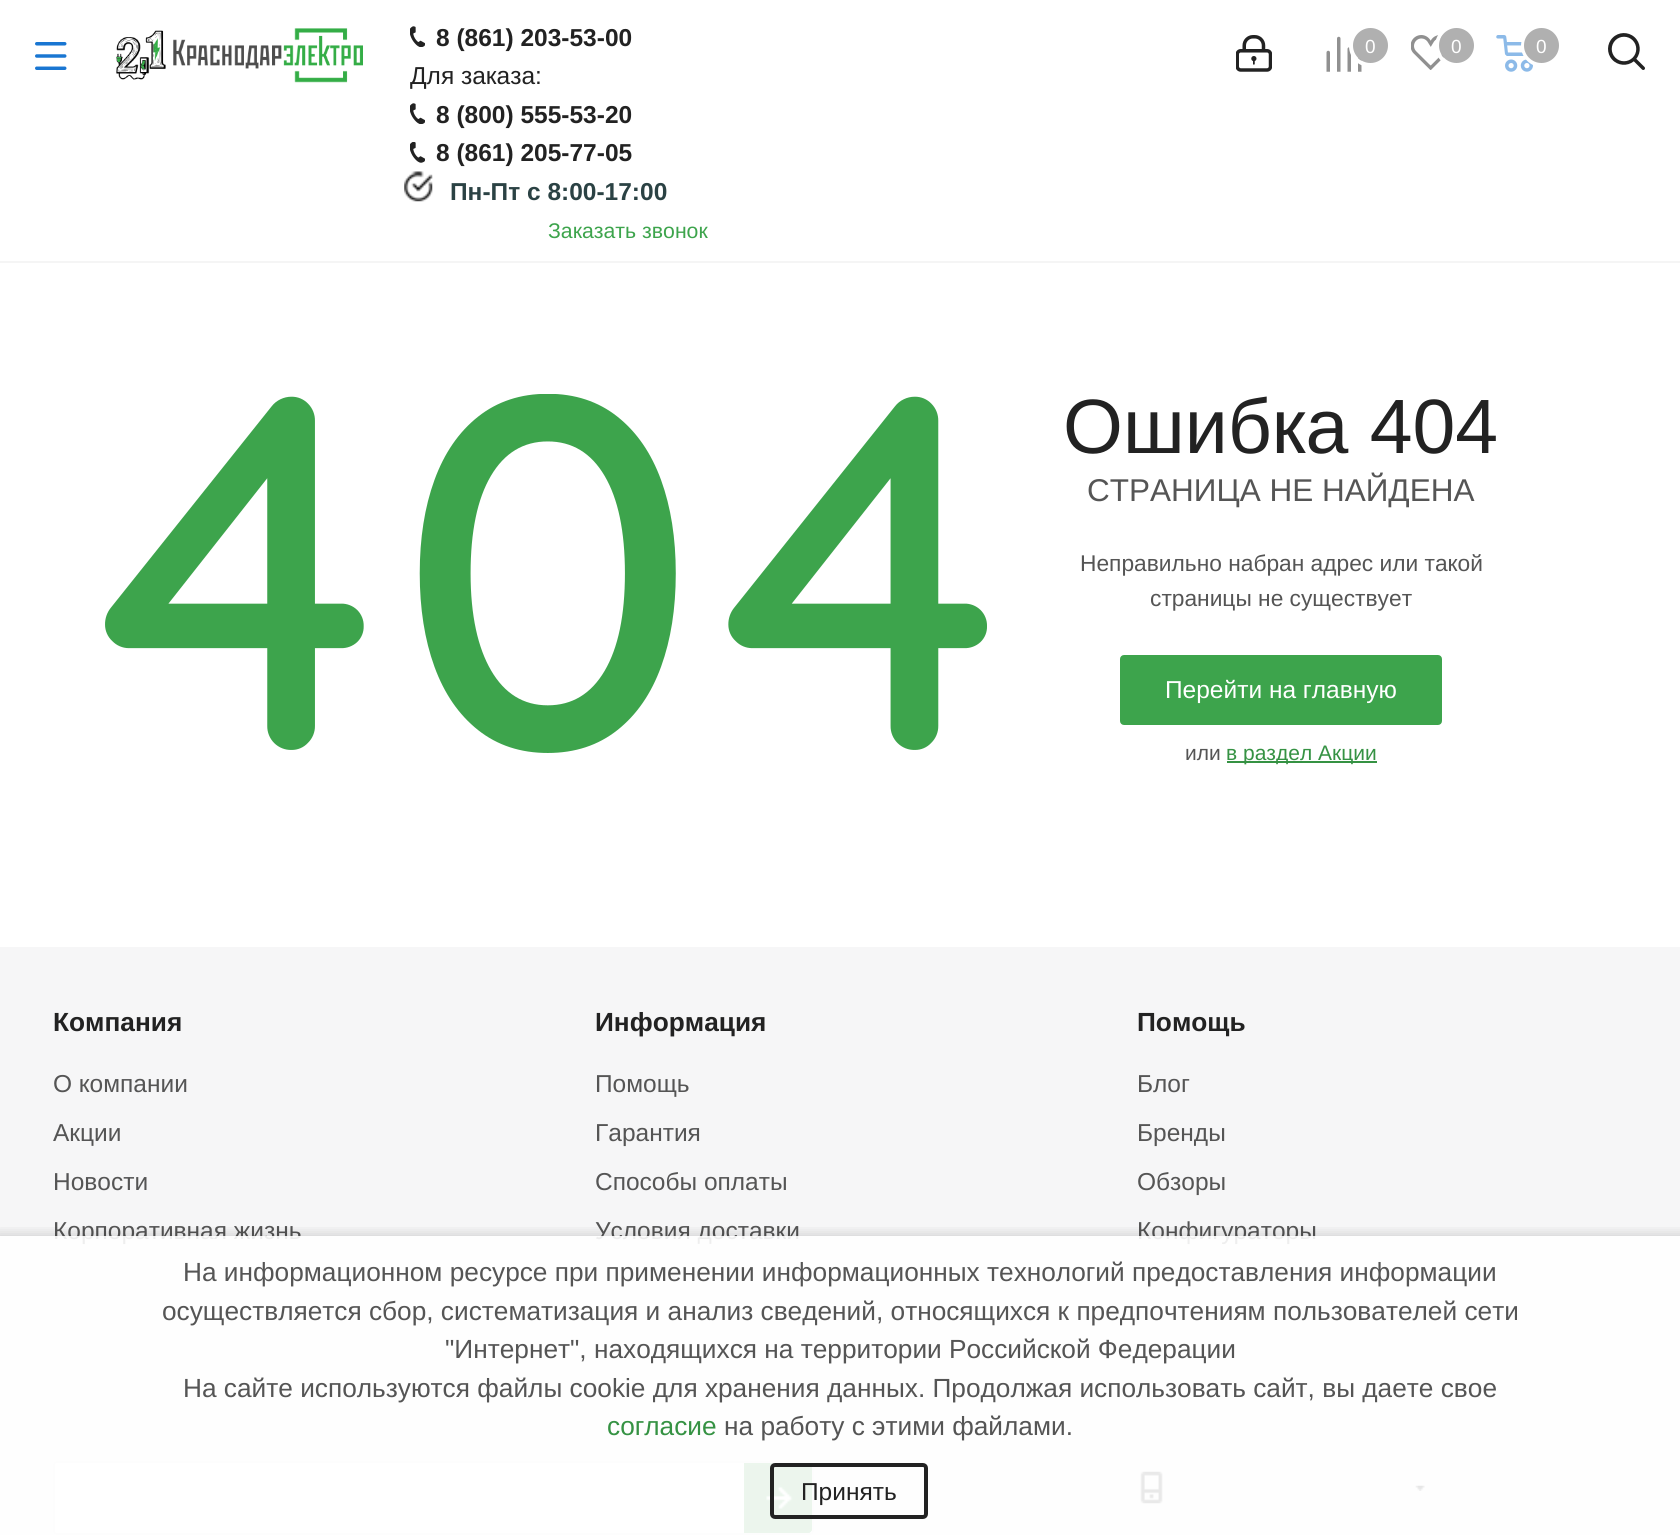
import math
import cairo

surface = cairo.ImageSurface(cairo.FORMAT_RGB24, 1680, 1535)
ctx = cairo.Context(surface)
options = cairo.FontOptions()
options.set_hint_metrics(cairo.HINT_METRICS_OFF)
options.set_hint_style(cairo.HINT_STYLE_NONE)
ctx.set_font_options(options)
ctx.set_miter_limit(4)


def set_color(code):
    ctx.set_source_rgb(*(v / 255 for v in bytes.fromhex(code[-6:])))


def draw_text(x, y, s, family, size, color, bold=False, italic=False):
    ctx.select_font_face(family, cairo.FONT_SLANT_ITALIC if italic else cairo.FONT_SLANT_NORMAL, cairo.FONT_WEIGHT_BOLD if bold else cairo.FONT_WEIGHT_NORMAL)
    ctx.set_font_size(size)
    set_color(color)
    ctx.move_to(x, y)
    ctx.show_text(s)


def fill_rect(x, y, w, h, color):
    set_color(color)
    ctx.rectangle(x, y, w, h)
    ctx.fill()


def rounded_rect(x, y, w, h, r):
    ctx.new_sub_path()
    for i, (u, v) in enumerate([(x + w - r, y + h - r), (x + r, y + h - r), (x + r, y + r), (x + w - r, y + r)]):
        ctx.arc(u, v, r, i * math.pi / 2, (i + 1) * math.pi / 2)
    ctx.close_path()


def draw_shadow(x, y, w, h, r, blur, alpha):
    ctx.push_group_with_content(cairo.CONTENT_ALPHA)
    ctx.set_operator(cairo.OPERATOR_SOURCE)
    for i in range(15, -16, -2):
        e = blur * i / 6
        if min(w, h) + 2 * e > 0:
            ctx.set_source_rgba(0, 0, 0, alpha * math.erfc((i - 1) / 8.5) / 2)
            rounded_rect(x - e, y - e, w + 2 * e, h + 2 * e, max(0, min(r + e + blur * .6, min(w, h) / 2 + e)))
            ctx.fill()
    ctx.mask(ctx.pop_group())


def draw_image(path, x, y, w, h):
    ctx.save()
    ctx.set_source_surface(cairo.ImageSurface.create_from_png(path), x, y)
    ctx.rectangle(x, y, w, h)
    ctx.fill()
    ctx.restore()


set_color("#ffffff")
ctx.paint()
fill_rect(0, 261, 1680, 2, "#f5f5f5")
draw_image("assets/img1.png", 35, 42, 32, 28)
draw_image("assets/img2.png", 116, 28, 247, 55)
draw_image("assets/img3.png", 410, 26, 15, 21)
draw_text(436, 46, "8 (861) 203-53-00", "Liberation Sans", 24.5, "#222222", bold=True)
draw_text(410, 84, "Для заказа:", "Liberation Sans", 24.5, "#222222")
draw_image("assets/img3.png", 410, 103, 15, 21)
draw_text(436, 123, "8 (800) 555-53-20", "Liberation Sans", 24.5, "#222222", bold=True)
draw_image("assets/img4.png", 410, 142, 15, 21)
draw_text(436, 161, "8 (861) 205-77-05", "Liberation Sans", 24.5, "#222222", bold=True)
draw_image("assets/img5.png", 404, 171, 29, 31)
draw_text(450, 200, "Пн-Пт с 8:00-17:00", "Liberation Sans", 24.5, "#2b4244", bold=True)
draw_text(548, 238, "Заказать звонок", "Liberation Sans", 21.25, "#3da44c")
draw_image("assets/img6.png", 1236, 35, 36, 37)
draw_image("assets/img7.png", 1326, 36, 36, 36)
ctx.arc(1370, 46, 19, 0, 2 * math.pi)
set_color("#ffffff")
ctx.set_line_width(4)
ctx.stroke()
set_color("#b0b0b0")
ctx.arc(1370.5, 45.5, 17.5, 0, 2 * math.pi)
ctx.fill()
draw_text(1365, 53, "0", "Liberation Sans", 19, "#ffffff")
draw_image("assets/img8.png", 1411, 35, 33, 35)
ctx.arc(1456, 46, 19, 0, 2 * math.pi)
ctx.stroke()
set_color("#b0b0b0")
ctx.arc(1456.5, 45.5, 17.5, 0, 2 * math.pi)
ctx.fill()
draw_text(1451, 53, "0", "Liberation Sans", 19, "#ffffff")
draw_image("assets/img9.png", 1496, 35, 37, 37)
ctx.arc(1542, 46, 19, 0, 2 * math.pi)
ctx.stroke()
set_color("#b0b0b0")
ctx.arc(1541.5, 45.5, 17.5, 0, 2 * math.pi)
ctx.fill()
draw_text(1536, 53, "0", "Liberation Sans", 19, "#ffffff")
draw_image("assets/img10.png", 1608, 33, 37, 37)
draw_image("assets/img11.png", 105, 394, 882, 359)
draw_text(1063, 453, "Ошибка 404", "Liberation Sans", 77, "#222222")
draw_text(1087, 501, "СТРАНИЦА НЕ НАЙДЕНА", "Liberation Sans", 31.5, "#555555")
draw_text(1080, 571, "Неправильно набран адрес или такой", "Liberation Sans", 22.75, "#555555")
draw_text(1150, 606, "страницы не существует", "Liberation Sans", 22.75, "#555555")
set_color("#3da44c")
rounded_rect(1121, 656, 320, 68, 3)
ctx.fill_preserve()
ctx.set_line_width(2)
ctx.stroke()
draw_text(1165, 698, "Перейти на главную", "Liberation Sans", 24.5, "#ffffff")
draw_text(1185, 760, "или", "Liberation Sans", 21, "#555555")
fill_rect(1227, 761, 150, 2, "#359243")
draw_text(1226, 760, "в раздел Акции", "Liberation Sans", 21, "#359243")
fill_rect(0, 947, 1680, 588, "#f6f6f7")
draw_text(53, 1031, "Компания", "Liberation Sans", 26.25, "#222222", bold=True)
draw_text(53, 1092, "О компании", "Liberation Sans", 24.5, "#555555")
draw_text(53, 1141, "Акции", "Liberation Sans", 24.5, "#555555")
draw_text(53, 1190, "Новости", "Liberation Sans", 24.5, "#555555")
draw_text(53, 1239, "Корпоративная жизнь", "Liberation Sans", 24.5, "#555555")
draw_text(595, 1031, "Информация", "Liberation Sans", 26.25, "#222222", bold=True)
draw_text(595, 1092, "Помощь", "Liberation Sans", 24.5, "#555555")
draw_text(595, 1141, "Гарантия", "Liberation Sans", 24.5, "#555555")
draw_text(595, 1190, "Способы оплаты", "Liberation Sans", 24.5, "#555555")
draw_text(595, 1239, "Условия доставки", "Liberation Sans", 24.5, "#555555")
draw_text(1137, 1031, "Помощь", "Liberation Sans", 26.25, "#222222", bold=True)
draw_text(1137, 1092, "Блог", "Liberation Sans", 24.5, "#555555")
draw_text(1137, 1141, "Бренды", "Liberation Sans", 24.5, "#555555")
draw_text(1137, 1190, "Обзоры", "Liberation Sans", 24.5, "#555555")
draw_text(1137, 1239, "Конфигураторы", "Liberation Sans", 24.5, "#555555")
set_color("#ffffff")
rounded_rect(54, 1462, 759, 72, 3)
ctx.fill_preserve()
set_color("#eeeeee")
ctx.stroke()
set_color("#399e48")
ctx.new_path()
ctx.move_to(744, 1463)
ctx.line_to(808, 1463)
ctx.curve_to(810, 1463, 812, 1465, 812, 1467)
ctx.line_to(812, 1529)
ctx.curve_to(812, 1531, 810, 1533, 808, 1533)
ctx.line_to(744, 1533)
ctx.close_path()
ctx.fill()
draw_image("assets/img12.png", 766, 1485, 27, 24)
ctx.new_path()
ctx.move_to(745, 1464)
ctx.line_to(808, 1464)
ctx.curve_to(809.5, 1464, 811, 1465.5, 811, 1467)
ctx.line_to(811, 1529)
ctx.curve_to(811, 1530.5, 809.5, 1532, 808, 1532)
ctx.line_to(745, 1532)
ctx.close_path()
set_color("#3da44c")
ctx.stroke()
draw_image("assets/img13.png", 1140, 1471, 23, 33)
draw_image("assets/img14.png", 1415, 1485, 10, 6)
ctx.save()
ctx.rectangle(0, 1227, 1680, 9)
ctx.clip()
set_color("#000000")
draw_shadow(-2, 1234, 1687, 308, 0, 6, 0.16)
ctx.restore()
ctx.set_source_rgba(1, 1, 1, 0.9)
ctx.rectangle(0, 1236, 1680, 299)
ctx.fill()
draw_text(183, 1281, "На информационном ресурсе при применении информационных технологий предоставления информации", "Liberation Sans", 26.25, "#555555")
draw_text(162, 1320, "осуществляется сбор, систематизация и анализ сведений, относящихся к предпочтениям пользователей сети", "Liberation Sans", 26.25, "#555555")
draw_text(445, 1358, "\"Интернет\", находящихся на территории Российской Федерации", "Liberation Sans", 26.25, "#555555")
draw_text(183, 1397, "На сайте используются файлы cookie для хранения данных. Продолжая использовать сайт, вы даете свое", "Liberation Sans", 26.25, "#555555")
draw_text(607, 1435, "согласие", "Liberation Sans", 26.25, "#359243")
draw_text(724, 1435, "на работу с этими файлами.", "Liberation Sans", 26.25, "#555555")
rounded_rect(772, 1465, 154, 52, 3)
set_color("#222222")
ctx.set_line_width(4)
ctx.stroke()
draw_text(801, 1500, "Принять", "Liberation Sans", 24.5, "#222222")
surface.write_to_png("output.png")
